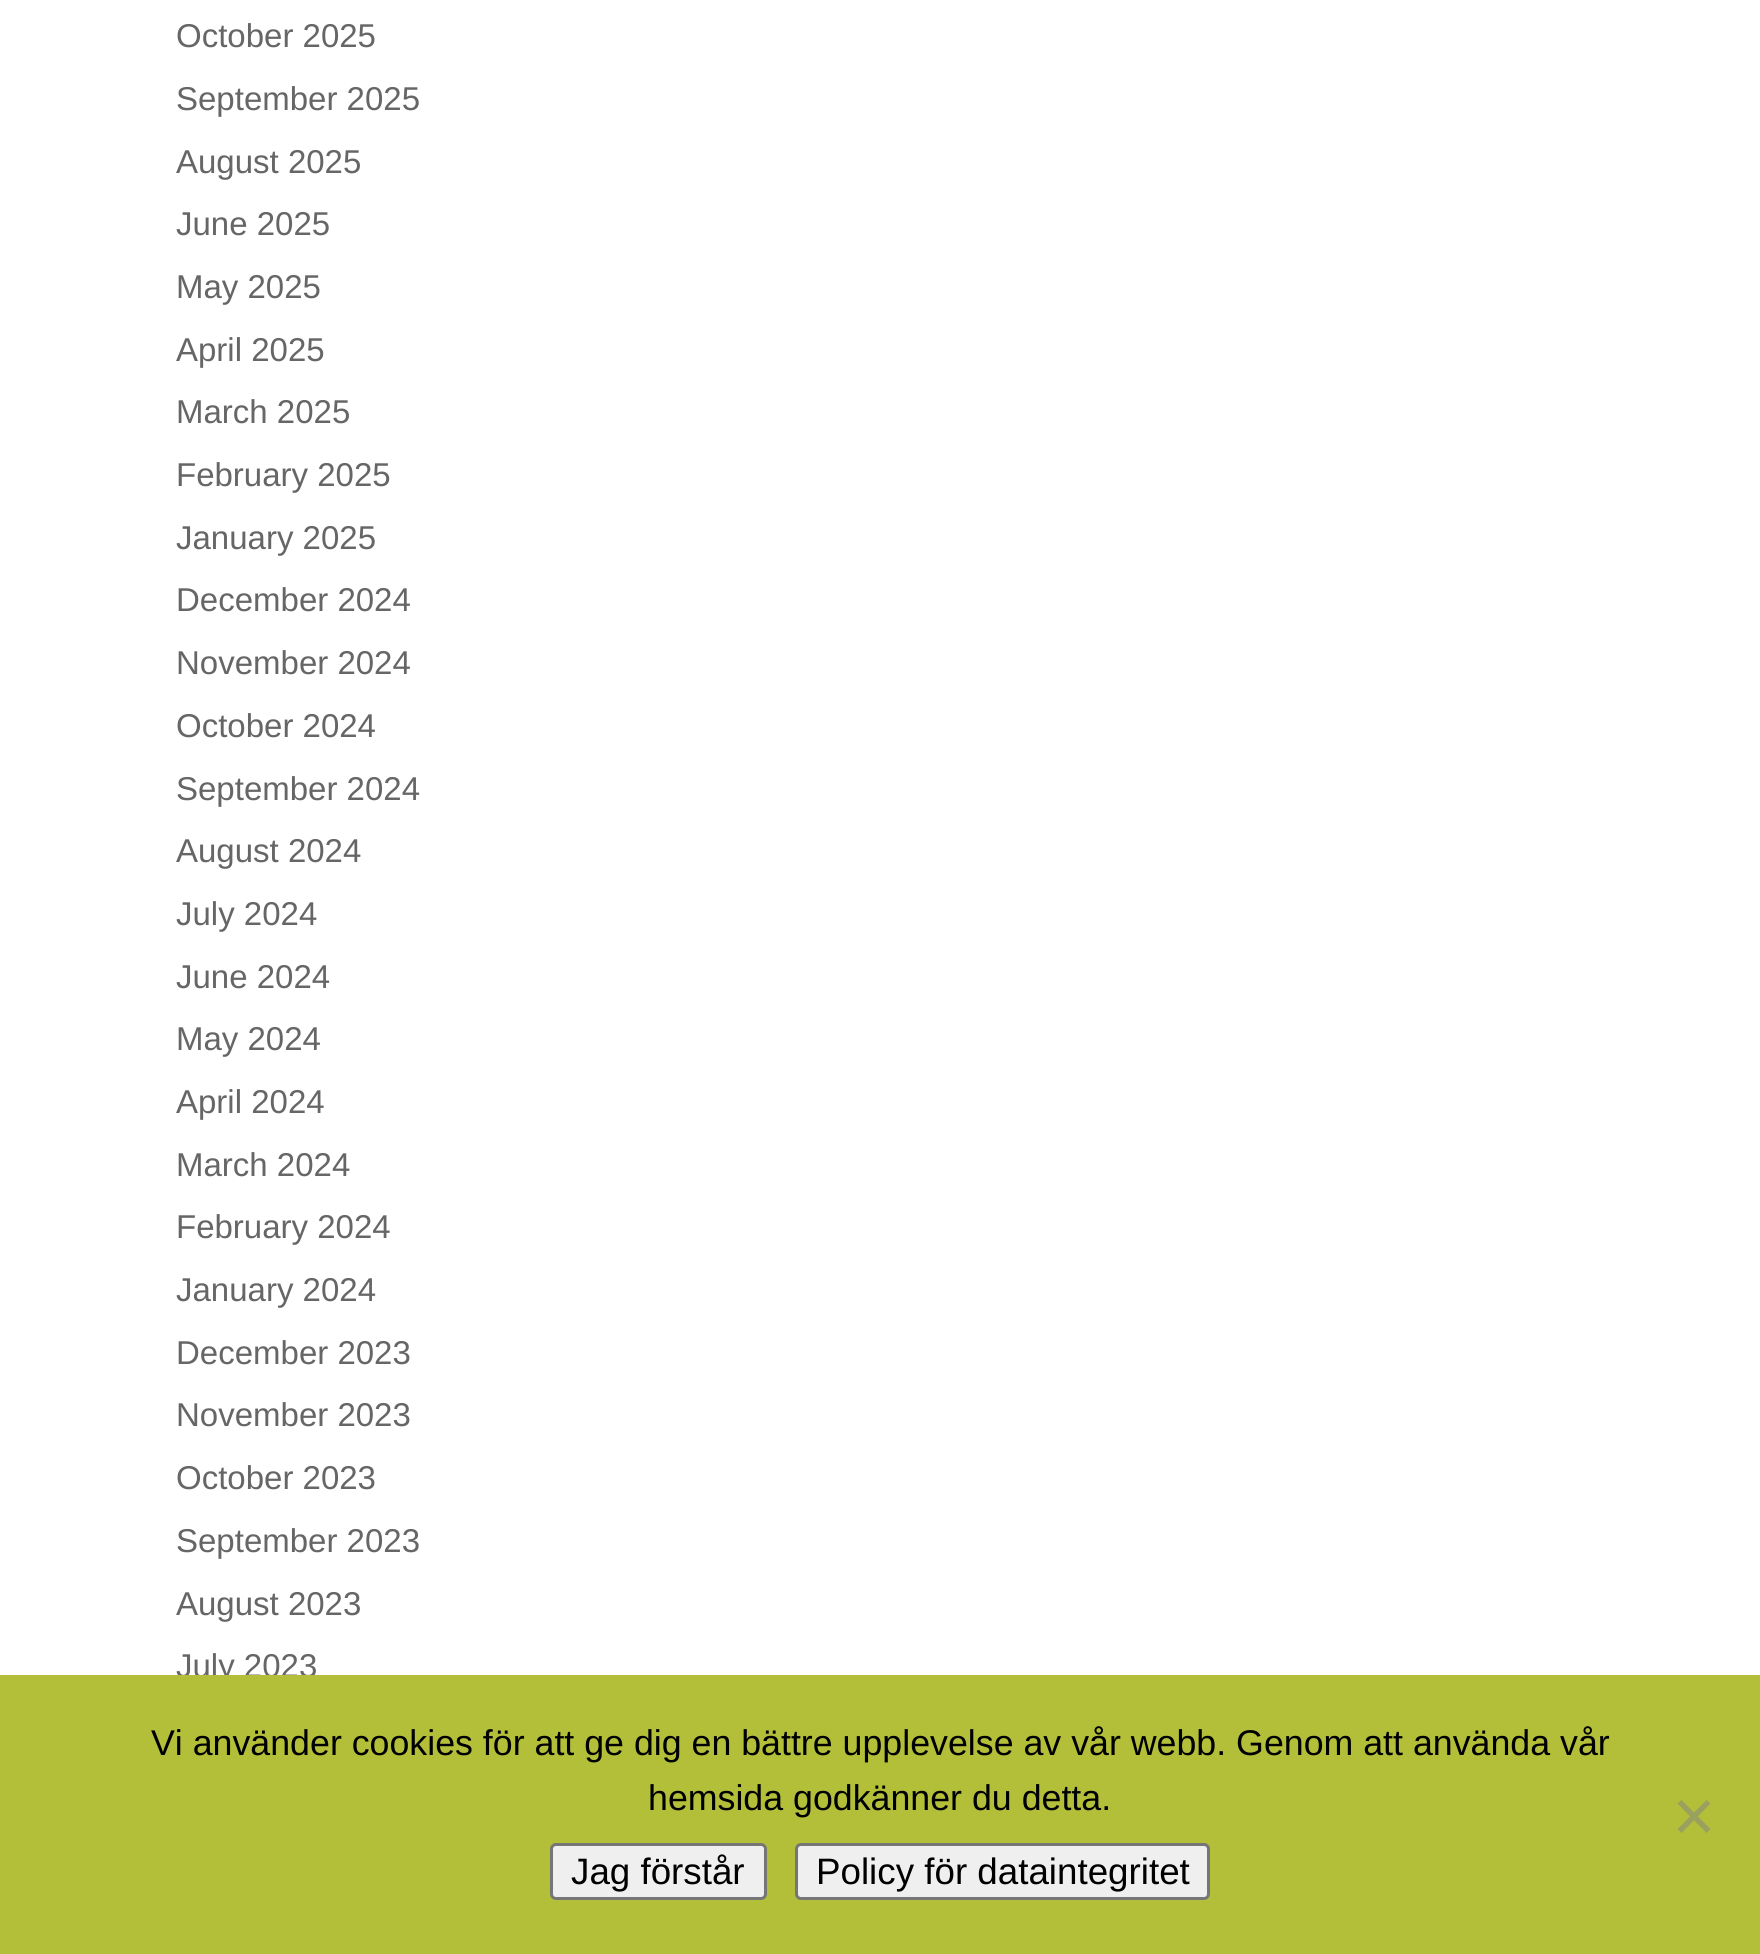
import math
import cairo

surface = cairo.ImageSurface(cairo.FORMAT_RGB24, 1760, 1954)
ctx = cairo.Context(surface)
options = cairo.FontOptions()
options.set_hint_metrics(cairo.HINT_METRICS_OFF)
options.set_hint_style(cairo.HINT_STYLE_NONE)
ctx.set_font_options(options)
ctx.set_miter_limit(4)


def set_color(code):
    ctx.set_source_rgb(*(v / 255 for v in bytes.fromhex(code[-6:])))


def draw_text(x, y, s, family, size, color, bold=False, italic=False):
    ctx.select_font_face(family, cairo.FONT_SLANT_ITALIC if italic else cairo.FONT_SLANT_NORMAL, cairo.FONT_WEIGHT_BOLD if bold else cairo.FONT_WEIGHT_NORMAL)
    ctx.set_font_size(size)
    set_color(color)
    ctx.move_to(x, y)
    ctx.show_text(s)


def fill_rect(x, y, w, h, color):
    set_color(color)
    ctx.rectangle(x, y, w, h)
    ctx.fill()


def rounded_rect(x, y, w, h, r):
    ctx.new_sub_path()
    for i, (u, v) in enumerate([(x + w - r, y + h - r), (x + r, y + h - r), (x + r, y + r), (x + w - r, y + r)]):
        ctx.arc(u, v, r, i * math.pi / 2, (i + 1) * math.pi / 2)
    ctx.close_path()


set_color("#ffffff")
ctx.paint()
draw_text(176, 47, "October 2025", "Liberation Sans", 33, "#666666")
draw_text(176, 110, "September 2025", "Liberation Sans", 33, "#666666")
draw_text(176, 173, "August 2025", "Liberation Sans", 33, "#666666")
draw_text(176, 235, "June 2025", "Liberation Sans", 33, "#666666")
draw_text(176, 298, "May 2025", "Liberation Sans", 33, "#666666")
draw_text(176, 361, "April 2025", "Liberation Sans", 33, "#666666")
draw_text(176, 423, "March 2025", "Liberation Sans", 33, "#666666")
draw_text(176, 486, "February 2025", "Liberation Sans", 33, "#666666")
draw_text(176, 549, "January 2025", "Liberation Sans", 33, "#666666")
draw_text(176, 611, "December 2024", "Liberation Sans", 33, "#666666")
draw_text(176, 674, "November 2024", "Liberation Sans", 33, "#666666")
draw_text(176, 737, "October 2024", "Liberation Sans", 33, "#666666")
draw_text(176, 800, "September 2024", "Liberation Sans", 33, "#666666")
draw_text(176, 862, "August 2024", "Liberation Sans", 33, "#666666")
draw_text(176, 925, "July 2024", "Liberation Sans", 33, "#666666")
draw_text(176, 988, "June 2024", "Liberation Sans", 33, "#666666")
draw_text(176, 1050, "May 2024", "Liberation Sans", 33, "#666666")
draw_text(176, 1113, "April 2024", "Liberation Sans", 33, "#666666")
draw_text(176, 1176, "March 2024", "Liberation Sans", 33, "#666666")
draw_text(176, 1238, "February 2024", "Liberation Sans", 33, "#666666")
draw_text(176, 1301, "January 2024", "Liberation Sans", 33, "#666666")
draw_text(176, 1364, "December 2023", "Liberation Sans", 33, "#666666")
draw_text(176, 1426, "November 2023", "Liberation Sans", 33, "#666666")
draw_text(176, 1489, "October 2023", "Liberation Sans", 33, "#666666")
draw_text(176, 1552, "September 2023", "Liberation Sans", 33, "#666666")
draw_text(176, 1615, "August 2023", "Liberation Sans", 33, "#666666")
draw_text(176, 1677, "July 2023", "Liberation Sans", 33, "#666666")
fill_rect(0, 1675, 1760, 279, "#b3bf39")
draw_text(151, 1755, "Vi använder cookies för att ge dig en bättre upplevelse av vår webb. Genom att använda vår", "Liberation Sans", 35.75, "#000000")
draw_text(648, 1810, "hemsida godkänner du detta.", "Liberation Sans", 35.75, "#000000")
set_color("#9aa05d")
ctx.new_path()
ctx.move_to(1706.5, 1800)
ctx.line_to(1710.5, 1803.5)
ctx.line_to(1681.5, 1833)
ctx.line_to(1677.5, 1829)
ctx.close_path()
ctx.fill()
ctx.new_path()
ctx.move_to(1677.5, 1803.5)
ctx.line_to(1681.5, 1800)
ctx.line_to(1710.5, 1829)
ctx.line_to(1706.5, 1833)
ctx.close_path()
ctx.fill()
set_color("#efefef")
rounded_rect(551.5, 1844.5, 214, 54, 4.5)
ctx.fill_preserve()
set_color("#767676")
ctx.set_line_width(3)
ctx.stroke()
draw_text(571, 1884, "Jag förstår", "Liberation Sans", 36.75, "#000000")
set_color("#efefef")
rounded_rect(796.5, 1844.5, 412, 54, 4.5)
ctx.fill_preserve()
set_color("#767676")
ctx.stroke()
draw_text(816, 1884, "Policy för dataintegritet", "Liberation Sans", 36.75, "#000000")
surface.write_to_png("output.png")
